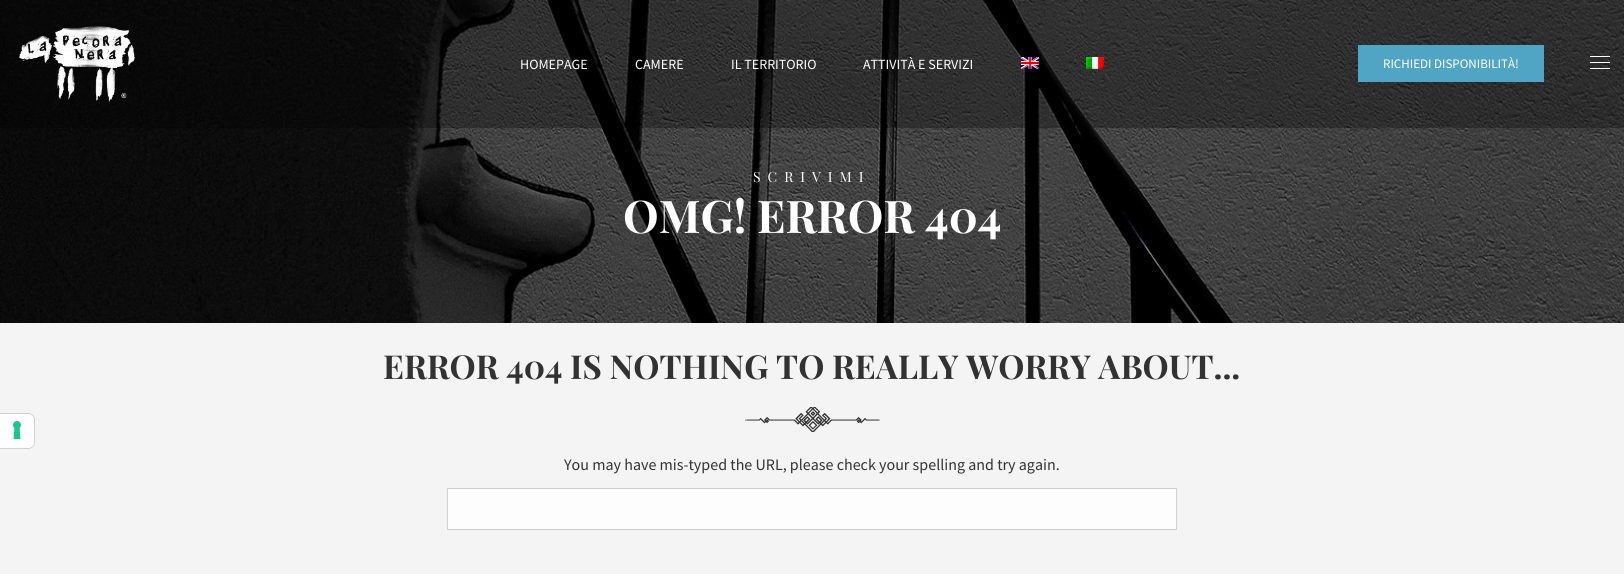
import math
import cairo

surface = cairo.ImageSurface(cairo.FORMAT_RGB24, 1624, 574)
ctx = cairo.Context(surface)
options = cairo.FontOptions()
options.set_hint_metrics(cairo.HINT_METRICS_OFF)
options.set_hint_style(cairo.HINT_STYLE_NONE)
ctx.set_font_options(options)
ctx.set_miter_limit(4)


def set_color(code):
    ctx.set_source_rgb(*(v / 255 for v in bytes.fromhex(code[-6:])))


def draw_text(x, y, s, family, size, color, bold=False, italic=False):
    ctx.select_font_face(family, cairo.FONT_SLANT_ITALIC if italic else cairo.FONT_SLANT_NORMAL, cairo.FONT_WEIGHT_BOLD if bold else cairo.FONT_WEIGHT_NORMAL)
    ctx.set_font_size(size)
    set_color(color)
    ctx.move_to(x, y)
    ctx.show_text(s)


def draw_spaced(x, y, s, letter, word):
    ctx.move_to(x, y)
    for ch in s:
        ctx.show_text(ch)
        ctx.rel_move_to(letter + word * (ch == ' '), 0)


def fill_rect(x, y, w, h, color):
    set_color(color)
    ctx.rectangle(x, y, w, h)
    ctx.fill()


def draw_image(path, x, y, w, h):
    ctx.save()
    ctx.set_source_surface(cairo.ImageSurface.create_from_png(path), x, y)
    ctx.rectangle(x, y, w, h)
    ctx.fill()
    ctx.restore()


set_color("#f4f4f4")
ctx.paint()
ctx.new_path()
ctx.move_to(-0.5, 413.5)
ctx.line_to(28, 413.5)
ctx.curve_to(31.5, 413.5, 34.5, 416.5, 34.5, 420)
ctx.line_to(34.5, 442)
ctx.curve_to(34.5, 445.5, 31.5, 448.5, 28, 448.5)
ctx.line_to(-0.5, 448.5)
ctx.close_path()
set_color("#cfcfcf")
ctx.set_line_width(1)
ctx.stroke()
set_color("#ffffff")
ctx.new_path()
ctx.move_to(0, 414)
ctx.line_to(28, 414)
ctx.curve_to(31.5, 414, 34, 416.5, 34, 420)
ctx.line_to(34, 442)
ctx.curve_to(34, 445.5, 31.5, 448, 28, 448)
ctx.line_to(0, 448)
ctx.close_path()
ctx.fill()
draw_image("assets/img1.png", 13, 421, 8, 18)
draw_image("assets/img5.png", 0, 0, 1624, 323)
ctx.set_source_rgba(0, 0, 0, 0.3)
ctx.rectangle(0, 0, 1624, 128)
ctx.fill()
draw_image("assets/img2.png", 19, 26, 116, 76)
draw_text(520, 69, "HOMEPAGE", "Source Sans Pro", 14, "#ffffff")
draw_text(635, 69, "CAMERE", "Source Sans Pro", 14, "#ffffff")
draw_text(731, 69, "IL TERRITORIO", "Source Sans Pro", 14, "#ffffff")
draw_text(863, 69, "ATTIVITÀ E SERVIZI", "Source Sans Pro", 14, "#ffffff")
draw_image("assets/img3.png", 1021, 57, 19, 12)
draw_image("assets/img4.png", 1086, 57, 19, 12)
fill_rect(1358, 45, 186, 37, "#50a4c4")
draw_text(1383, 68, "RICHIEDI DISPONIBILITÀ!", "Source Sans Pro", 13, "#ffffff")
fill_rect(1590, 56, 20, 1, "#ffffff")
fill_rect(1590, 62, 20, 1, "#ffffff")
fill_rect(1590, 68, 20, 1, "#ffffff")
ctx.select_font_face("Playfair Display")
ctx.set_font_size(14)
draw_spaced(753, 182, "SCRIVIMI", 7, 0)
draw_text(623, 233, "OMG! ERROR 404", "Playfair Display", 45, "#ffffff", bold=True)
draw_text(383, 379, "ERROR 404 IS NOTHING TO REALLY WORRY ABOUT...", "Playfair Display", 33, "#323232", bold=True)
draw_image("assets/img6.png", 745, 407, 135, 25)
draw_text(564, 470, "You may have mis-typed the URL, please check your spelling and try again.", "Source Sans Pro", 16, "#323232")
set_color("#fdfdfd")
ctx.rectangle(447.5, 488.5, 729, 41)
ctx.fill_preserve()
set_color("#cececf")
ctx.stroke()
surface.write_to_png("output.png")
